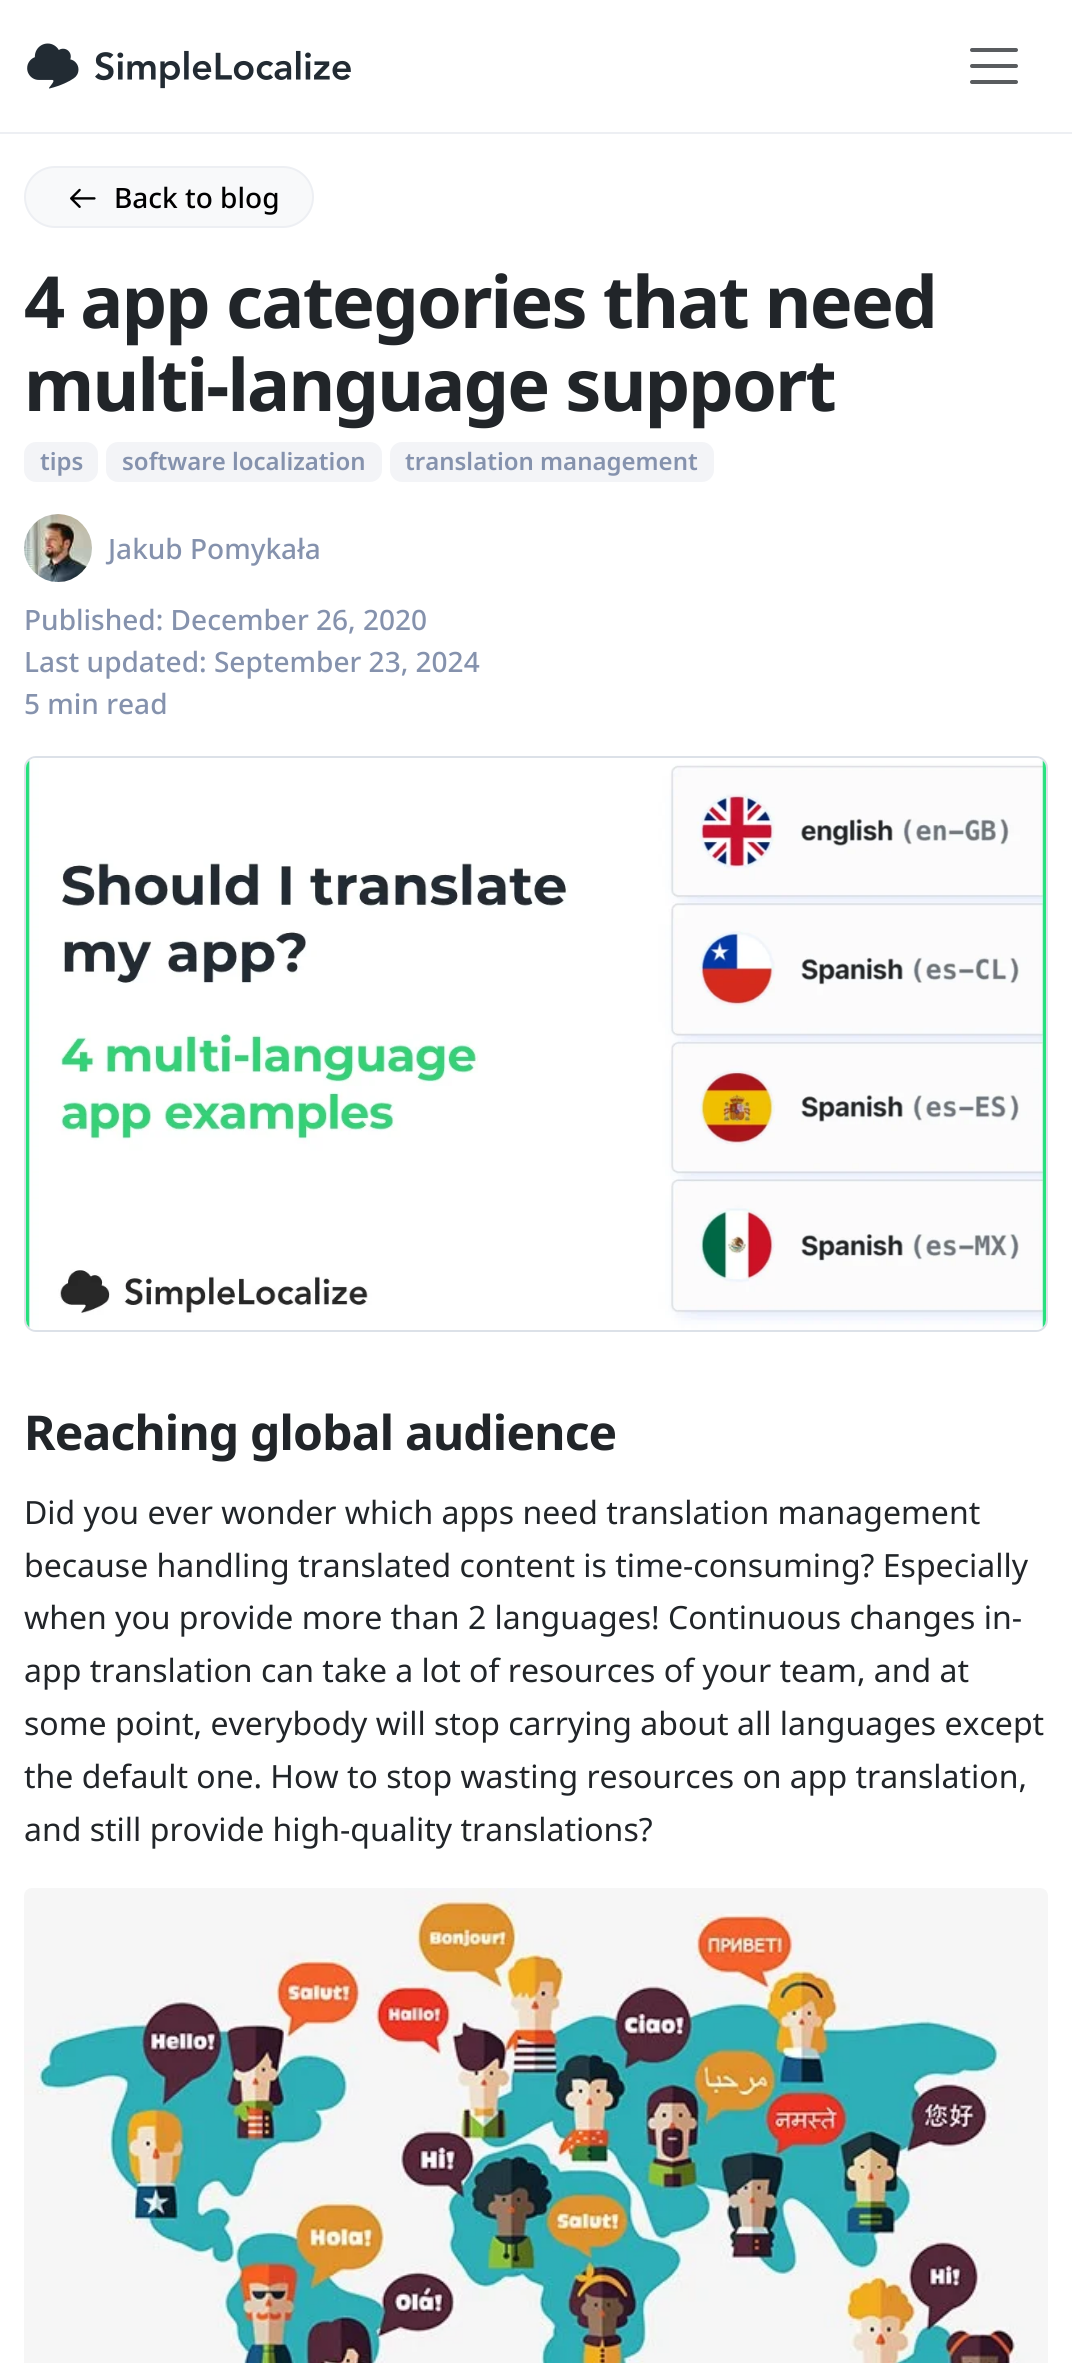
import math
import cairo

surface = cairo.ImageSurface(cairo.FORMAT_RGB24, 1072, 2363)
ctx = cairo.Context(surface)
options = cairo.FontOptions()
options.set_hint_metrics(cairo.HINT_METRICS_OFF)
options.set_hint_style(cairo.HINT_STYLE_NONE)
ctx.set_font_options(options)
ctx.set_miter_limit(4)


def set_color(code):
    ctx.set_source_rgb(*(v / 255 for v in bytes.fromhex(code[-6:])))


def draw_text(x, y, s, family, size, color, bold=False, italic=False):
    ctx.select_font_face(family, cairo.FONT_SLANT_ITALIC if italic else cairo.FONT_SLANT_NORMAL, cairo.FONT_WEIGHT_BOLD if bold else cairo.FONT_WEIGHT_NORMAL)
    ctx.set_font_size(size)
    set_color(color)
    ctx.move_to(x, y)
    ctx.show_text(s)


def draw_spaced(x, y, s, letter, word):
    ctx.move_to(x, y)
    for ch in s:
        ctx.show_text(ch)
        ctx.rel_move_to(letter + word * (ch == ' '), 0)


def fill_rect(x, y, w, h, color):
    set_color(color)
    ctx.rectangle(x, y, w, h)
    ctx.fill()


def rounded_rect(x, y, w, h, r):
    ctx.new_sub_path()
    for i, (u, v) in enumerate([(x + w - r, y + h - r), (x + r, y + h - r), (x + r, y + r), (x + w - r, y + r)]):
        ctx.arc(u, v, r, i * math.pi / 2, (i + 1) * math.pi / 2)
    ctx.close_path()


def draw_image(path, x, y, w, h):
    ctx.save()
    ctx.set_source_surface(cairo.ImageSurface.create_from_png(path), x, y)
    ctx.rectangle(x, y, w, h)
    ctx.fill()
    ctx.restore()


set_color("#ffffff")
ctx.paint()
fill_rect(0, 132, 1072, 2, "#edeff3")
draw_image("assets/img1.png", 27, 43, 324, 46)
ctx.new_path()
ctx.move_to(972, 50)
ctx.line_to(1016, 50)
ctx.move_to(972, 66)
ctx.line_to(1016, 66)
ctx.move_to(972, 82)
ctx.line_to(1016, 82)
set_color("#595c5f")
ctx.set_line_width(4)
ctx.set_line_cap(cairo.LINE_CAP_ROUND)
ctx.stroke()
set_color("#f8f9fa")
rounded_rect(25, 167, 288, 60, 30)
ctx.fill_preserve()
set_color("#edeff3")
ctx.set_line_width(2)
ctx.set_line_cap(cairo.LINE_CAP_BUTT)
ctx.stroke()
draw_image("assets/img2.png", 70, 188, 26, 20)
draw_text(114, 208, "Back to blog", "Noto Sans Medium", 28, "#000000")
ctx.select_font_face("Noto Sans", cairo.FONT_SLANT_NORMAL, cairo.FONT_WEIGHT_BOLD)
ctx.set_font_size(72)
set_color("#212529")
draw_spaced(24, 328, "4 app categories that need", -1.8, 0)
draw_spaced(24, 411, "multi-language support", -1.8, 0)
set_color("#f3f4f7")
rounded_rect(24, 442, 74, 40, 12)
ctx.fill()
draw_text(40, 470, "tips", "Noto Sans SemiBold", 24, "#8592ad")
set_color("#f3f4f7")
rounded_rect(106, 442, 276, 40, 12)
ctx.fill()
draw_text(122, 470, "software localization", "Noto Sans SemiBold", 24, "#8592ad")
set_color("#f3f4f7")
rounded_rect(390, 442, 324, 40, 12)
ctx.fill()
draw_text(405, 470, "translation management", "Noto Sans SemiBold", 24, "#8592ad")
draw_image("assets/img3.png", 24, 514, 68, 68)
draw_text(108, 559, "Jakub Pomykała", "Noto Sans Medium", 28, "#8592ad")
draw_text(24, 630, "Published: December 26, 2020", "Noto Sans Medium", 28, "#8592ad")
draw_text(24, 672, "Last updated: September 23, 2024", "Noto Sans Medium", 28, "#8592ad")
draw_text(24, 714, "5 min read", "Noto Sans Medium", 28, "#8592ad")
rounded_rect(25, 757, 1022, 574, 11)
set_color("#dce1e8")
ctx.stroke()
draw_image("assets/img4.png", 26, 758, 1020, 572)
ctx.select_font_face("Noto Sans", cairo.FONT_SLANT_NORMAL, cairo.FONT_WEIGHT_BOLD)
ctx.set_font_size(48)
set_color("#212529")
draw_spaced(24, 1450, "Reaching global audience", -0.8, 0)
draw_text(24, 1524, "Did you ever wonder which apps need translation management", "Noto Sans", 32, "#212529")
draw_text(24, 1577, "because handling translated content is time-consuming? Especially", "Noto Sans", 32, "#212529")
draw_text(24, 1629, "when you provide more than 2 languages! Continuous changes in-", "Noto Sans", 32, "#212529")
draw_text(24, 1682, "app translation can take a lot of resources of your team, and at", "Noto Sans", 32, "#212529")
draw_text(24, 1735, "some point, everybody will stop carrying about all languages except", "Noto Sans", 32, "#212529")
draw_text(24, 1788, "the default one. How to stop wasting resources on app translation,", "Noto Sans", 32, "#212529")
draw_text(24, 1841, "and still provide high-quality translations?", "Noto Sans", 32, "#212529")
draw_image("assets/img5.png", 24, 1888, 1024, 475)
surface.write_to_png("output.png")
